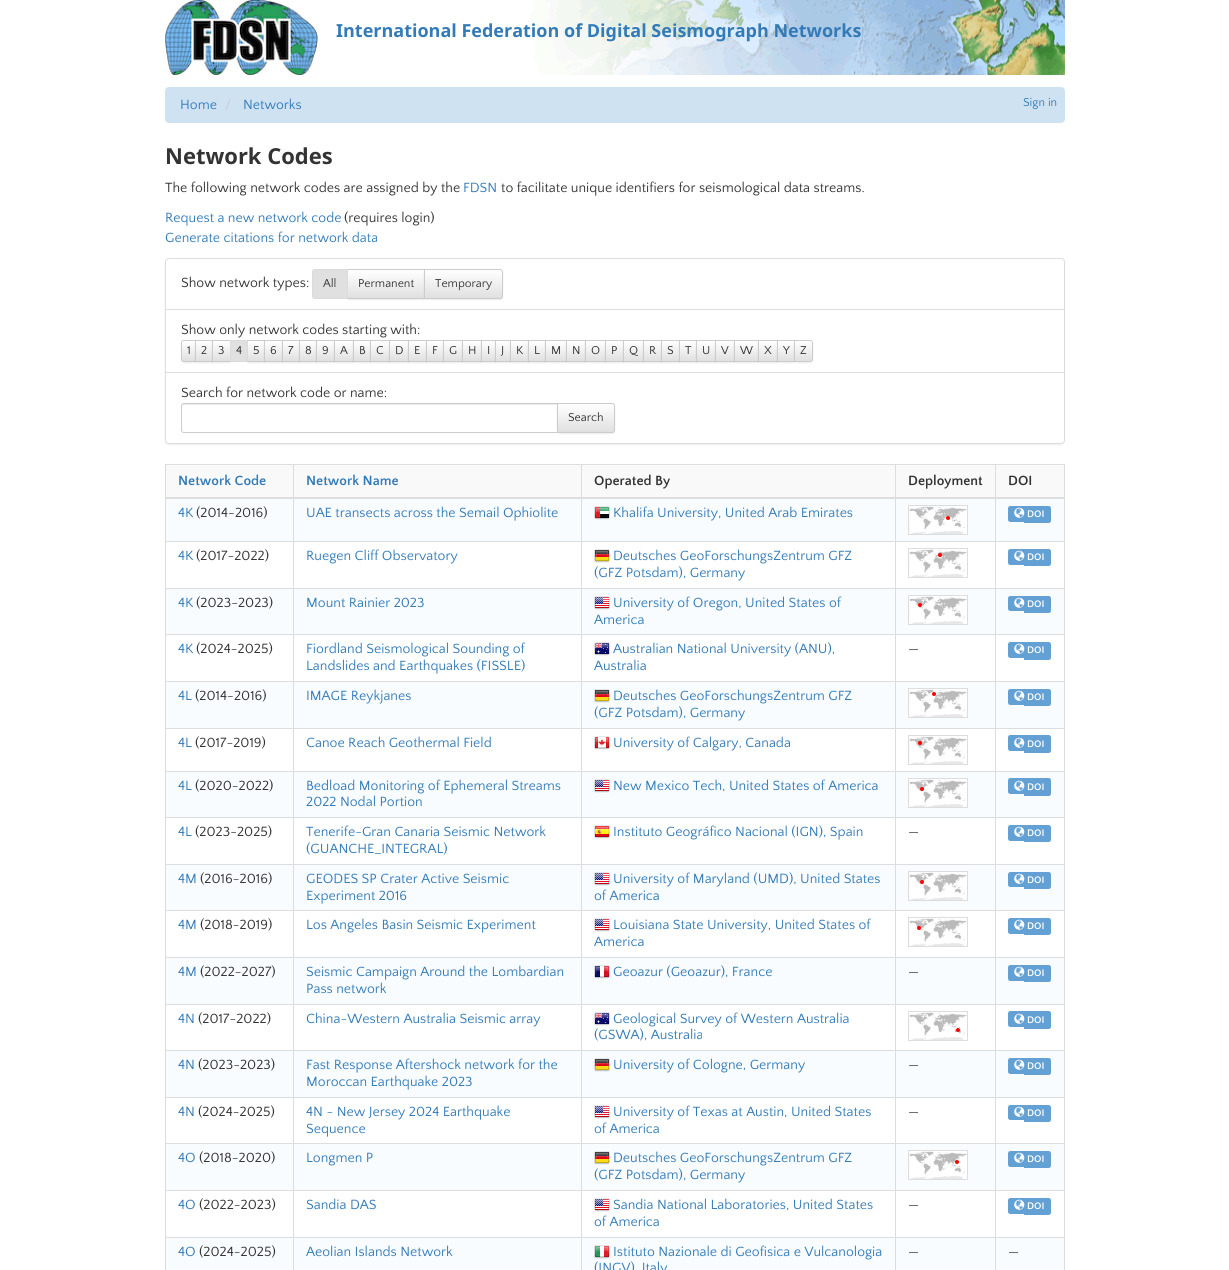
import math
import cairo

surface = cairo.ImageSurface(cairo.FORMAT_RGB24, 1229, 1270)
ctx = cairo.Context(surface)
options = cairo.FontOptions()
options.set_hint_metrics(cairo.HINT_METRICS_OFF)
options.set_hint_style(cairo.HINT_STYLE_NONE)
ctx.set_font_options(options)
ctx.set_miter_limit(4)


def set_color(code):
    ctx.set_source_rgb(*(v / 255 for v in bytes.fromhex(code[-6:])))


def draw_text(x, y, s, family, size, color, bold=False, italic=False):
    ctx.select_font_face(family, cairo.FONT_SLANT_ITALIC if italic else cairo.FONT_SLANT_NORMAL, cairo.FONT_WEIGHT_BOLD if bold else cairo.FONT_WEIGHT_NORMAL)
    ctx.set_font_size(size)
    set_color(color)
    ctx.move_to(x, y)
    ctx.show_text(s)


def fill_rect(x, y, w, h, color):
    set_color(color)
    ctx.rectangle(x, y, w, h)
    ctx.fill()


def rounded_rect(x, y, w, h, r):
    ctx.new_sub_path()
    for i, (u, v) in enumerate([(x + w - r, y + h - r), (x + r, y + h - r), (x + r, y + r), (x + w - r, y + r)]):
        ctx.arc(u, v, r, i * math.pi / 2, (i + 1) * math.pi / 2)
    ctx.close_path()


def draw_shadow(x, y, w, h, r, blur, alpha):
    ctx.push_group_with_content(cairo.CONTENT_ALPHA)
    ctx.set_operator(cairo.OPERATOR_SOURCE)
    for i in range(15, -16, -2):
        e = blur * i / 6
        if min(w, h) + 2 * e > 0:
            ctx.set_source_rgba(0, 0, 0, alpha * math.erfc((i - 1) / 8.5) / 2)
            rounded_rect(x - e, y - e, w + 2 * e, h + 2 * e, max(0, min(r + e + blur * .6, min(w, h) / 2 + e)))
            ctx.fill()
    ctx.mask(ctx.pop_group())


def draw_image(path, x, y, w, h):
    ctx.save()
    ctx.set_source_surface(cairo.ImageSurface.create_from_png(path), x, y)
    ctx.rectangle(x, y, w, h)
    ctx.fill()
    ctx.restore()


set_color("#ffffff")
ctx.paint()
draw_image("assets/img1.png", 530, 0, 535, 75)
draw_image("assets/img2.png", 165, 0, 153, 75)
draw_text(336, 37, "International Federation of Digital Seismograph Networks", "Noto Sans", 18, "#337bb8", bold=True)
set_color("#cfe2f2")
rounded_rect(165, 87, 900, 36, 4)
ctx.fill()
draw_text(180, 109, "Home", "Quattrocento Sans", 14, "#337bb8")
draw_text(225, 109, "/", "Quattrocento Sans", 14, "#cccccc")
draw_text(243, 109, "Networks", "Quattrocento Sans", 14, "#337bb8")
draw_text(1023, 106, "Sign in", "Quattrocento Sans", 12, "#337bb8")
draw_text(165, 164, "Network Codes", "Noto Sans", 22, "#333333", bold=True)
draw_text(165, 192, "The following network codes are assigned by the", "Quattrocento Sans", 14, "#333333")
draw_text(463, 192, "FDSN", "Quattrocento Sans", 14, "#337bb8")
draw_text(501, 192, "to facilitate unique identifiers for seismological data streams.", "Quattrocento Sans", 14, "#333333")
draw_text(165, 222, "Request a new network code", "Quattrocento Sans", 14, "#337bb8")
draw_text(344, 222, "(requires login)", "Quattrocento Sans", 14, "#333333")
draw_text(165, 242, "Generate citations for network data", "Quattrocento Sans", 14, "#337bb8")
ctx.save()
ctx.set_fill_rule(cairo.FILL_RULE_EVEN_ODD)
ctx.new_path()
ctx.move_to(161, 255)
ctx.line_to(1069, 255)
ctx.line_to(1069, 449)
ctx.line_to(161, 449)
ctx.close_path()
ctx.move_to(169, 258)
ctx.line_to(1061, 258)
ctx.curve_to(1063, 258, 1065, 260, 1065, 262)
ctx.line_to(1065, 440)
ctx.curve_to(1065, 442, 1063, 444, 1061, 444)
ctx.line_to(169, 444)
ctx.curve_to(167, 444, 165, 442, 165, 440)
ctx.line_to(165, 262)
ctx.curve_to(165, 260, 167, 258, 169, 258)
ctx.close_path()
ctx.clip()
set_color("#000000")
draw_shadow(165, 259, 900, 186, 4, 1, 0.07)
ctx.restore()
ctx.new_path()
ctx.move_to(169, 258.5)
ctx.line_to(1061, 258.5)
ctx.curve_to(1063, 258.5, 1064.5, 260, 1064.5, 262)
ctx.line_to(1064.5, 309.5)
ctx.line_to(165.5, 309.5)
ctx.line_to(165.5, 262)
ctx.curve_to(165.5, 260, 167, 258.5, 169, 258.5)
ctx.close_path()
set_color("#dddddd")
ctx.set_line_width(1)
ctx.stroke()
draw_text(181, 287, "Show network types:", "Quattrocento Sans", 14, "#333333")
set_color("#000000")
draw_shadow(347, 270, 78, 30, 0, 0.5, 0.07)
gradient = cairo.LinearGradient(386, 270, 386, 298)
gradient.add_color_stop_rgba(0, 1, 1, 1, 1)
gradient.add_color_stop_rgba(1, 0.878, 0.878, 0.878, 1)
ctx.set_source(gradient)
ctx.rectangle(348, 270, 76, 28)
ctx.fill()
ctx.rectangle(347.5, 269.5, 77, 29)
set_color("#cccccc")
ctx.stroke()
set_color("#e0e0e0")
ctx.new_path()
ctx.move_to(315, 269.5)
ctx.line_to(347.5, 269.5)
ctx.line_to(347.5, 298.5)
ctx.line_to(315, 298.5)
ctx.curve_to(313.5, 298.5, 312.5, 297.5, 312.5, 296)
ctx.line_to(312.5, 272)
ctx.curve_to(312.5, 270.5, 313.5, 269.5, 315, 269.5)
ctx.close_path()
ctx.fill_preserve()
set_color("#dbdbdb")
ctx.stroke()
draw_text(323, 287, "All", "Quattrocento Sans", 12, "#333333")
draw_text(358, 287, "Permanent", "Quattrocento Sans", 12, "#333333")
set_color("#000000")
draw_shadow(424, 270, 79, 30, 3, 0.5, 0.07)
ctx.save()
ctx.new_path()
ctx.move_to(424, 269)
ctx.line_to(500, 269)
ctx.curve_to(501.5, 269, 503, 270.5, 503, 272)
ctx.line_to(503, 296)
ctx.curve_to(503, 297.5, 501.5, 299, 500, 299)
ctx.line_to(424, 299)
ctx.close_path()
ctx.clip()
gradient = cairo.LinearGradient(464, 270, 464, 298)
gradient.add_color_stop_rgba(0, 1, 1, 1, 1)
gradient.add_color_stop_rgba(1, 0.878, 0.878, 0.878, 1)
ctx.set_source(gradient)
ctx.rectangle(425, 270, 78, 28)
ctx.fill()
ctx.restore()
ctx.new_path()
ctx.move_to(424.5, 269.5)
ctx.line_to(500, 269.5)
ctx.curve_to(501.5, 269.5, 502.5, 270.5, 502.5, 272)
ctx.line_to(502.5, 296)
ctx.curve_to(502.5, 297.5, 501.5, 298.5, 500, 298.5)
ctx.line_to(424.5, 298.5)
ctx.close_path()
set_color("#cccccc")
ctx.stroke()
draw_text(435, 287, "Temporary", "Quattrocento Sans", 12, "#333333")
ctx.rectangle(165.5, 309.5, 899, 63)
set_color("#dddddd")
ctx.stroke()
draw_text(181, 334, "Show only network codes starting with:", "Quattrocento Sans", 14, "#333333")
set_color("#000000")
draw_shadow(181, 341, 15, 22, 3, 0.5, 0.07)
ctx.save()
ctx.new_path()
ctx.move_to(184, 340)
ctx.line_to(196, 340)
ctx.line_to(196, 362)
ctx.line_to(184, 362)
ctx.curve_to(182.5, 362, 181, 360.5, 181, 359)
ctx.line_to(181, 343)
ctx.curve_to(181, 341.5, 182.5, 340, 184, 340)
ctx.close_path()
ctx.clip()
gradient = cairo.LinearGradient(189, 341, 189, 361)
gradient.add_color_stop_rgba(0, 1, 1, 1, 1)
gradient.add_color_stop_rgba(1, 0.878, 0.878, 0.878, 1)
ctx.set_source(gradient)
ctx.rectangle(181, 341, 14, 20)
ctx.fill()
ctx.restore()
ctx.new_path()
ctx.move_to(184, 340.5)
ctx.line_to(195.5, 340.5)
ctx.line_to(195.5, 361.5)
ctx.line_to(184, 361.5)
ctx.curve_to(182.5, 361.5, 181.5, 360.5, 181.5, 359)
ctx.line_to(181.5, 343)
ctx.curve_to(181.5, 341.5, 182.5, 340.5, 184, 340.5)
ctx.close_path()
set_color("#cccccc")
ctx.stroke()
draw_text(187, 354, "1", "Quattrocento Sans", 12, "#333333")
set_color("#000000")
draw_shadow(195, 341, 18, 22, 0, 0.5, 0.07)
gradient = cairo.LinearGradient(204, 341, 204, 361)
gradient.add_color_stop_rgba(0, 1, 1, 1, 1)
gradient.add_color_stop_rgba(1, 0.878, 0.878, 0.878, 1)
ctx.set_source(gradient)
ctx.rectangle(196, 341, 16, 20)
ctx.fill()
ctx.rectangle(195.5, 340.5, 17, 21)
set_color("#cccccc")
ctx.stroke()
draw_text(201, 354, "2", "Quattrocento Sans", 12, "#333333")
set_color("#000000")
draw_shadow(212, 341, 19, 22, 0, 0.5, 0.07)
gradient = cairo.LinearGradient(222, 341, 222, 361)
gradient.add_color_stop_rgba(0, 1, 1, 1, 1)
gradient.add_color_stop_rgba(1, 0.878, 0.878, 0.878, 1)
ctx.set_source(gradient)
ctx.rectangle(213, 341, 17, 20)
ctx.fill()
ctx.rectangle(212.5, 340.5, 18, 21)
set_color("#cccccc")
ctx.stroke()
draw_text(218, 354, "3", "Quattrocento Sans", 12, "#333333")
set_color("#000000")
draw_shadow(247, 341, 18, 22, 0, 0.5, 0.07)
gradient = cairo.LinearGradient(256, 341, 256, 361)
gradient.add_color_stop_rgba(0, 1, 1, 1, 1)
gradient.add_color_stop_rgba(1, 0.878, 0.878, 0.878, 1)
ctx.set_source(gradient)
ctx.rectangle(248, 341, 16, 20)
ctx.fill()
ctx.rectangle(247.5, 340.5, 17, 21)
set_color("#cccccc")
ctx.stroke()
set_color("#e0e0e0")
ctx.rectangle(230.5, 340.5, 17, 21)
ctx.fill_preserve()
set_color("#dbdbdb")
ctx.stroke()
draw_text(236, 354, "4", "Quattrocento Sans", 12, "#333333")
draw_text(253, 354, "5", "Quattrocento Sans", 12, "#333333")
set_color("#000000")
draw_shadow(264, 341, 19, 22, 0, 0.5, 0.07)
gradient = cairo.LinearGradient(274, 341, 274, 361)
gradient.add_color_stop_rgba(0, 1, 1, 1, 1)
gradient.add_color_stop_rgba(1, 0.878, 0.878, 0.878, 1)
ctx.set_source(gradient)
ctx.rectangle(265, 341, 17, 20)
ctx.fill()
ctx.rectangle(264.5, 340.5, 18, 21)
set_color("#cccccc")
ctx.stroke()
draw_text(270, 354, "6", "Quattrocento Sans", 12, "#333333")
set_color("#000000")
draw_shadow(282, 341, 18, 22, 0, 0.5, 0.07)
gradient = cairo.LinearGradient(291, 341, 291, 361)
gradient.add_color_stop_rgba(0, 1, 1, 1, 1)
gradient.add_color_stop_rgba(1, 0.878, 0.878, 0.878, 1)
ctx.set_source(gradient)
ctx.rectangle(283, 341, 16, 20)
ctx.fill()
ctx.rectangle(282.5, 340.5, 17, 21)
set_color("#cccccc")
ctx.stroke()
draw_text(288, 354, "7", "Quattrocento Sans", 12, "#333333")
set_color("#000000")
draw_shadow(299, 341, 18, 22, 0, 0.5, 0.07)
gradient = cairo.LinearGradient(308, 341, 308, 361)
gradient.add_color_stop_rgba(0, 1, 1, 1, 1)
gradient.add_color_stop_rgba(1, 0.878, 0.878, 0.878, 1)
ctx.set_source(gradient)
ctx.rectangle(300, 341, 16, 20)
ctx.fill()
ctx.rectangle(299.5, 340.5, 17, 21)
set_color("#cccccc")
ctx.stroke()
draw_text(305, 354, "8", "Quattrocento Sans", 12, "#333333")
set_color("#000000")
draw_shadow(316, 341, 19, 22, 0, 0.5, 0.07)
gradient = cairo.LinearGradient(326, 341, 326, 361)
gradient.add_color_stop_rgba(0, 1, 1, 1, 1)
gradient.add_color_stop_rgba(1, 0.878, 0.878, 0.878, 1)
ctx.set_source(gradient)
ctx.rectangle(317, 341, 17, 20)
ctx.fill()
ctx.rectangle(316.5, 340.5, 18, 21)
set_color("#cccccc")
ctx.stroke()
draw_text(322, 354, "9", "Quattrocento Sans", 12, "#333333")
set_color("#000000")
draw_shadow(334, 341, 20, 22, 0, 0.5, 0.07)
gradient = cairo.LinearGradient(344, 341, 344, 361)
gradient.add_color_stop_rgba(0, 1, 1, 1, 1)
gradient.add_color_stop_rgba(1, 0.878, 0.878, 0.878, 1)
ctx.set_source(gradient)
ctx.rectangle(335, 341, 18, 20)
ctx.fill()
ctx.rectangle(334.5, 340.5, 19, 21)
set_color("#cccccc")
ctx.stroke()
draw_text(340, 354, "A", "Quattrocento Sans", 12, "#333333")
set_color("#000000")
draw_shadow(353, 341, 18, 22, 0, 0.5, 0.07)
gradient = cairo.LinearGradient(362, 341, 362, 361)
gradient.add_color_stop_rgba(0, 1, 1, 1, 1)
gradient.add_color_stop_rgba(1, 0.878, 0.878, 0.878, 1)
ctx.set_source(gradient)
ctx.rectangle(354, 341, 16, 20)
ctx.fill()
ctx.rectangle(353.5, 340.5, 17, 21)
set_color("#cccccc")
ctx.stroke()
draw_text(359, 354, "B", "Quattrocento Sans", 12, "#333333")
set_color("#000000")
draw_shadow(370, 341, 20, 22, 0, 0.5, 0.07)
gradient = cairo.LinearGradient(380, 341, 380, 361)
gradient.add_color_stop_rgba(0, 1, 1, 1, 1)
gradient.add_color_stop_rgba(1, 0.878, 0.878, 0.878, 1)
ctx.set_source(gradient)
ctx.rectangle(371, 341, 18, 20)
ctx.fill()
ctx.rectangle(370.5, 340.5, 19, 21)
set_color("#cccccc")
ctx.stroke()
draw_text(376, 354, "C", "Quattrocento Sans", 12, "#333333")
set_color("#000000")
draw_shadow(389, 341, 20, 22, 0, 0.5, 0.07)
gradient = cairo.LinearGradient(399, 341, 399, 361)
gradient.add_color_stop_rgba(0, 1, 1, 1, 1)
gradient.add_color_stop_rgba(1, 0.878, 0.878, 0.878, 1)
ctx.set_source(gradient)
ctx.rectangle(390, 341, 18, 20)
ctx.fill()
ctx.rectangle(389.5, 340.5, 19, 21)
set_color("#cccccc")
ctx.stroke()
draw_text(395, 354, "D", "Quattrocento Sans", 12, "#333333")
set_color("#000000")
draw_shadow(408, 341, 19, 22, 0, 0.5, 0.07)
gradient = cairo.LinearGradient(418, 341, 418, 361)
gradient.add_color_stop_rgba(0, 1, 1, 1, 1)
gradient.add_color_stop_rgba(1, 0.878, 0.878, 0.878, 1)
ctx.set_source(gradient)
ctx.rectangle(409, 341, 17, 20)
ctx.fill()
ctx.rectangle(408.5, 340.5, 18, 21)
set_color("#cccccc")
ctx.stroke()
draw_text(414, 354, "E", "Quattrocento Sans", 12, "#333333")
set_color("#000000")
draw_shadow(426, 341, 18, 22, 0, 0.5, 0.07)
gradient = cairo.LinearGradient(435, 341, 435, 361)
gradient.add_color_stop_rgba(0, 1, 1, 1, 1)
gradient.add_color_stop_rgba(1, 0.878, 0.878, 0.878, 1)
ctx.set_source(gradient)
ctx.rectangle(427, 341, 16, 20)
ctx.fill()
ctx.rectangle(426.5, 340.5, 17, 21)
set_color("#cccccc")
ctx.stroke()
draw_text(432, 354, "F", "Quattrocento Sans", 12, "#333333")
set_color("#000000")
draw_shadow(443, 341, 20, 22, 0, 0.5, 0.07)
gradient = cairo.LinearGradient(453, 341, 453, 361)
gradient.add_color_stop_rgba(0, 1, 1, 1, 1)
gradient.add_color_stop_rgba(1, 0.878, 0.878, 0.878, 1)
ctx.set_source(gradient)
ctx.rectangle(444, 341, 18, 20)
ctx.fill()
ctx.rectangle(443.5, 340.5, 19, 21)
set_color("#cccccc")
ctx.stroke()
draw_text(449, 354, "G", "Quattrocento Sans", 12, "#333333")
set_color("#000000")
draw_shadow(462, 341, 20, 22, 0, 0.5, 0.07)
gradient = cairo.LinearGradient(472, 341, 472, 361)
gradient.add_color_stop_rgba(0, 1, 1, 1, 1)
gradient.add_color_stop_rgba(1, 0.878, 0.878, 0.878, 1)
ctx.set_source(gradient)
ctx.rectangle(463, 341, 18, 20)
ctx.fill()
ctx.rectangle(462.5, 340.5, 19, 21)
set_color("#cccccc")
ctx.stroke()
draw_text(468, 354, "H", "Quattrocento Sans", 12, "#333333")
set_color("#000000")
draw_shadow(481, 341, 15, 22, 0, 0.5, 0.07)
gradient = cairo.LinearGradient(489, 341, 489, 361)
gradient.add_color_stop_rgba(0, 1, 1, 1, 1)
gradient.add_color_stop_rgba(1, 0.878, 0.878, 0.878, 1)
ctx.set_source(gradient)
ctx.rectangle(482, 341, 13, 20)
ctx.fill()
ctx.rectangle(481.5, 340.5, 14, 21)
set_color("#cccccc")
ctx.stroke()
draw_text(487, 354, "I", "Quattrocento Sans", 12, "#333333")
set_color("#000000")
draw_shadow(495, 341, 16, 22, 0, 0.5, 0.07)
gradient = cairo.LinearGradient(503, 341, 503, 361)
gradient.add_color_stop_rgba(0, 1, 1, 1, 1)
gradient.add_color_stop_rgba(1, 0.878, 0.878, 0.878, 1)
ctx.set_source(gradient)
ctx.rectangle(496, 341, 14, 20)
ctx.fill()
ctx.rectangle(495.5, 340.5, 15, 21)
set_color("#cccccc")
ctx.stroke()
draw_text(501, 354, "J", "Quattrocento Sans", 12, "#333333")
set_color("#000000")
draw_shadow(510, 341, 19, 22, 0, 0.5, 0.07)
gradient = cairo.LinearGradient(520, 341, 520, 361)
gradient.add_color_stop_rgba(0, 1, 1, 1, 1)
gradient.add_color_stop_rgba(1, 0.878, 0.878, 0.878, 1)
ctx.set_source(gradient)
ctx.rectangle(511, 341, 17, 20)
ctx.fill()
ctx.rectangle(510.5, 340.5, 18, 21)
set_color("#cccccc")
ctx.stroke()
draw_text(516, 354, "K", "Quattrocento Sans", 12, "#333333")
set_color("#000000")
draw_shadow(528, 341, 18, 22, 0, 0.5, 0.07)
gradient = cairo.LinearGradient(537, 341, 537, 361)
gradient.add_color_stop_rgba(0, 1, 1, 1, 1)
gradient.add_color_stop_rgba(1, 0.878, 0.878, 0.878, 1)
ctx.set_source(gradient)
ctx.rectangle(529, 341, 16, 20)
ctx.fill()
ctx.rectangle(528.5, 340.5, 17, 21)
set_color("#cccccc")
ctx.stroke()
draw_text(534, 354, "L", "Quattrocento Sans", 12, "#333333")
set_color("#000000")
draw_shadow(545, 341, 22, 22, 0, 0.5, 0.07)
gradient = cairo.LinearGradient(556, 341, 556, 361)
gradient.add_color_stop_rgba(0, 1, 1, 1, 1)
gradient.add_color_stop_rgba(1, 0.878, 0.878, 0.878, 1)
ctx.set_source(gradient)
ctx.rectangle(546, 341, 20, 20)
ctx.fill()
ctx.rectangle(545.5, 340.5, 21, 21)
set_color("#cccccc")
ctx.stroke()
draw_text(551, 354, "M", "Quattrocento Sans", 12, "#333333")
set_color("#000000")
draw_shadow(566, 341, 20, 22, 0, 0.5, 0.07)
gradient = cairo.LinearGradient(576, 341, 576, 361)
gradient.add_color_stop_rgba(0, 1, 1, 1, 1)
gradient.add_color_stop_rgba(1, 0.878, 0.878, 0.878, 1)
ctx.set_source(gradient)
ctx.rectangle(567, 341, 18, 20)
ctx.fill()
ctx.rectangle(566.5, 340.5, 19, 21)
set_color("#cccccc")
ctx.stroke()
draw_text(572, 354, "N", "Quattrocento Sans", 12, "#333333")
set_color("#000000")
draw_shadow(585, 341, 21, 22, 0, 0.5, 0.07)
gradient = cairo.LinearGradient(596, 341, 596, 361)
gradient.add_color_stop_rgba(0, 1, 1, 1, 1)
gradient.add_color_stop_rgba(1, 0.878, 0.878, 0.878, 1)
ctx.set_source(gradient)
ctx.rectangle(586, 341, 19, 20)
ctx.fill()
ctx.rectangle(585.5, 340.5, 20, 21)
set_color("#cccccc")
ctx.stroke()
draw_text(591, 354, "O", "Quattrocento Sans", 12, "#333333")
set_color("#000000")
draw_shadow(605, 341, 19, 22, 0, 0.5, 0.07)
gradient = cairo.LinearGradient(615, 341, 615, 361)
gradient.add_color_stop_rgba(0, 1, 1, 1, 1)
gradient.add_color_stop_rgba(1, 0.878, 0.878, 0.878, 1)
ctx.set_source(gradient)
ctx.rectangle(606, 341, 17, 20)
ctx.fill()
ctx.rectangle(605.5, 340.5, 18, 21)
set_color("#cccccc")
ctx.stroke()
draw_text(611, 354, "P", "Quattrocento Sans", 12, "#333333")
set_color("#000000")
draw_shadow(623, 341, 21, 22, 0, 0.5, 0.07)
gradient = cairo.LinearGradient(634, 341, 634, 361)
gradient.add_color_stop_rgba(0, 1, 1, 1, 1)
gradient.add_color_stop_rgba(1, 0.878, 0.878, 0.878, 1)
ctx.set_source(gradient)
ctx.rectangle(624, 341, 19, 20)
ctx.fill()
ctx.rectangle(623.5, 340.5, 20, 21)
set_color("#cccccc")
ctx.stroke()
draw_text(629, 354, "Q", "Quattrocento Sans", 12, "#333333")
set_color("#000000")
draw_shadow(643, 341, 19, 22, 0, 0.5, 0.07)
gradient = cairo.LinearGradient(653, 341, 653, 361)
gradient.add_color_stop_rgba(0, 1, 1, 1, 1)
gradient.add_color_stop_rgba(1, 0.878, 0.878, 0.878, 1)
ctx.set_source(gradient)
ctx.rectangle(644, 341, 17, 20)
ctx.fill()
ctx.rectangle(643.5, 340.5, 18, 21)
set_color("#cccccc")
ctx.stroke()
draw_text(649, 354, "R", "Quattrocento Sans", 12, "#333333")
set_color("#000000")
draw_shadow(661, 341, 19, 22, 0, 0.5, 0.07)
gradient = cairo.LinearGradient(671, 341, 671, 361)
gradient.add_color_stop_rgba(0, 1, 1, 1, 1)
gradient.add_color_stop_rgba(1, 0.878, 0.878, 0.878, 1)
ctx.set_source(gradient)
ctx.rectangle(662, 341, 17, 20)
ctx.fill()
ctx.rectangle(661.5, 340.5, 18, 21)
set_color("#cccccc")
ctx.stroke()
draw_text(667, 354, "S", "Quattrocento Sans", 12, "#333333")
set_color("#000000")
draw_shadow(679, 341, 18, 22, 0, 0.5, 0.07)
gradient = cairo.LinearGradient(688, 341, 688, 361)
gradient.add_color_stop_rgba(0, 1, 1, 1, 1)
gradient.add_color_stop_rgba(1, 0.878, 0.878, 0.878, 1)
ctx.set_source(gradient)
ctx.rectangle(680, 341, 16, 20)
ctx.fill()
ctx.rectangle(679.5, 340.5, 17, 21)
set_color("#cccccc")
ctx.stroke()
draw_text(685, 354, "T", "Quattrocento Sans", 12, "#333333")
set_color("#000000")
draw_shadow(696, 341, 20, 22, 0, 0.5, 0.07)
gradient = cairo.LinearGradient(706, 341, 706, 361)
gradient.add_color_stop_rgba(0, 1, 1, 1, 1)
gradient.add_color_stop_rgba(1, 0.878, 0.878, 0.878, 1)
ctx.set_source(gradient)
ctx.rectangle(697, 341, 18, 20)
ctx.fill()
ctx.rectangle(696.5, 340.5, 19, 21)
set_color("#cccccc")
ctx.stroke()
draw_text(702, 354, "U", "Quattrocento Sans", 12, "#333333")
set_color("#000000")
draw_shadow(715, 341, 20, 22, 0, 0.5, 0.07)
gradient = cairo.LinearGradient(725, 341, 725, 361)
gradient.add_color_stop_rgba(0, 1, 1, 1, 1)
gradient.add_color_stop_rgba(1, 0.878, 0.878, 0.878, 1)
ctx.set_source(gradient)
ctx.rectangle(716, 341, 18, 20)
ctx.fill()
ctx.rectangle(715.5, 340.5, 19, 21)
set_color("#cccccc")
ctx.stroke()
draw_text(721, 354, "V", "Quattrocento Sans", 12, "#333333")
set_color("#000000")
draw_shadow(734, 341, 25, 22, 0, 0.5, 0.07)
gradient = cairo.LinearGradient(747, 341, 747, 361)
gradient.add_color_stop_rgba(0, 1, 1, 1, 1)
gradient.add_color_stop_rgba(1, 0.878, 0.878, 0.878, 1)
ctx.set_source(gradient)
ctx.rectangle(735, 341, 23, 20)
ctx.fill()
ctx.rectangle(734.5, 340.5, 24, 21)
set_color("#cccccc")
ctx.stroke()
draw_text(740, 354, "W", "Quattrocento Sans", 12, "#333333")
set_color("#000000")
draw_shadow(758, 341, 20, 22, 0, 0.5, 0.07)
gradient = cairo.LinearGradient(768, 341, 768, 361)
gradient.add_color_stop_rgba(0, 1, 1, 1, 1)
gradient.add_color_stop_rgba(1, 0.878, 0.878, 0.878, 1)
ctx.set_source(gradient)
ctx.rectangle(759, 341, 18, 20)
ctx.fill()
ctx.rectangle(758.5, 340.5, 19, 21)
set_color("#cccccc")
ctx.stroke()
draw_text(764, 354, "X", "Quattrocento Sans", 12, "#333333")
set_color("#000000")
draw_shadow(777, 341, 18, 22, 0, 0.5, 0.07)
gradient = cairo.LinearGradient(786, 341, 786, 361)
gradient.add_color_stop_rgba(0, 1, 1, 1, 1)
gradient.add_color_stop_rgba(1, 0.878, 0.878, 0.878, 1)
ctx.set_source(gradient)
ctx.rectangle(778, 341, 16, 20)
ctx.fill()
ctx.rectangle(777.5, 340.5, 17, 21)
set_color("#cccccc")
ctx.stroke()
draw_text(783, 354, "Y", "Quattrocento Sans", 12, "#333333")
set_color("#000000")
draw_shadow(794, 341, 19, 22, 3, 0.5, 0.07)
ctx.save()
ctx.new_path()
ctx.move_to(794, 340)
ctx.line_to(810, 340)
ctx.curve_to(811.5, 340, 813, 341.5, 813, 343)
ctx.line_to(813, 359)
ctx.curve_to(813, 360.5, 811.5, 362, 810, 362)
ctx.line_to(794, 362)
ctx.close_path()
ctx.clip()
gradient = cairo.LinearGradient(804, 341, 804, 361)
gradient.add_color_stop_rgba(0, 1, 1, 1, 1)
gradient.add_color_stop_rgba(1, 0.878, 0.878, 0.878, 1)
ctx.set_source(gradient)
ctx.rectangle(795, 341, 18, 20)
ctx.fill()
ctx.restore()
ctx.new_path()
ctx.move_to(794.5, 340.5)
ctx.line_to(810, 340.5)
ctx.curve_to(811.5, 340.5, 812.5, 341.5, 812.5, 343)
ctx.line_to(812.5, 359)
ctx.curve_to(812.5, 360.5, 811.5, 361.5, 810, 361.5)
ctx.line_to(794.5, 361.5)
ctx.close_path()
set_color("#cccccc")
ctx.stroke()
draw_text(800, 354, "Z", "Quattrocento Sans", 12, "#333333")
set_color("#ffffff")
ctx.new_path()
ctx.move_to(165.5, 372.5)
ctx.line_to(1064.5, 372.5)
ctx.line_to(1064.5, 440)
ctx.curve_to(1064.5, 442, 1063, 443.5, 1061, 443.5)
ctx.line_to(169, 443.5)
ctx.curve_to(167, 443.5, 165.5, 442, 165.5, 440)
ctx.close_path()
ctx.fill_preserve()
set_color("#dddddd")
ctx.stroke()
draw_text(181, 397, "Search for network code or name:", "Quattrocento Sans", 14, "#333333")
set_color("#ececec")
ctx.new_path()
ctx.move_to(184, 405)
ctx.line_to(557, 405)
ctx.line_to(557, 404)
ctx.line_to(184, 404)
ctx.curve_to(182, 404, 182, 406, 182, 407)
ctx.curve_to(182, 406, 183, 405, 184, 405)
ctx.close_path()
ctx.fill()
ctx.new_path()
ctx.move_to(184, 403.5)
ctx.line_to(557.5, 403.5)
ctx.line_to(557.5, 432.5)
ctx.line_to(184, 432.5)
ctx.curve_to(182.5, 432.5, 181.5, 431.5, 181.5, 430)
ctx.line_to(181.5, 406)
ctx.curve_to(181.5, 404.5, 182.5, 403.5, 184, 403.5)
ctx.close_path()
set_color("#cccccc")
ctx.stroke()
set_color("#000000")
draw_shadow(557, 404, 58, 30, 3, 0.5, 0.07)
ctx.save()
ctx.new_path()
ctx.move_to(557, 403)
ctx.line_to(612, 403)
ctx.curve_to(613.5, 403, 615, 404.5, 615, 406)
ctx.line_to(615, 430)
ctx.curve_to(615, 431.5, 613.5, 433, 612, 433)
ctx.line_to(557, 433)
ctx.close_path()
ctx.clip()
gradient = cairo.LinearGradient(586, 404, 586, 432)
gradient.add_color_stop_rgba(0, 1, 1, 1, 1)
gradient.add_color_stop_rgba(1, 0.878, 0.878, 0.878, 1)
ctx.set_source(gradient)
ctx.rectangle(558, 404, 57, 28)
ctx.fill()
ctx.restore()
ctx.new_path()
ctx.move_to(557.5, 403.5)
ctx.line_to(612, 403.5)
ctx.curve_to(613.5, 403.5, 614.5, 404.5, 614.5, 406)
ctx.line_to(614.5, 430)
ctx.curve_to(614.5, 431.5, 613.5, 432.5, 612, 432.5)
ctx.line_to(557.5, 432.5)
ctx.close_path()
set_color("#cccccc")
ctx.stroke()
draw_text(568, 421, "Search", "Quattrocento Sans", 12, "#333333")
fill_rect(165, 464, 900, 1, "#dddddd")
fill_rect(1064, 464, 1, 806, "#dddddd")
fill_rect(165, 464, 1, 806, "#dddddd")
fill_rect(166, 465, 127, 32, "#f9f9f9")
draw_text(178, 485, "Network Code", "Quattrocento Sans", 14, "#337bb8", bold=True)
fill_rect(294, 465, 287, 32, "#f9f9f9")
draw_text(306, 485, "Network Name", "Quattrocento Sans", 14, "#337bb8", bold=True)
fill_rect(582, 465, 313, 32, "#f9f9f9")
draw_text(594, 485, "Operated By", "Quattrocento Sans", 14, "#333333", bold=True)
fill_rect(896, 465, 99, 32, "#f9f9f9")
draw_text(908, 485, "Deployment", "Quattrocento Sans", 14, "#333333", bold=True)
fill_rect(996, 465, 68, 32, "#f9f9f9")
fill_rect(166, 499, 898, 42, "#f9fcff")
fill_rect(995, 541, 70, 1, "#dddddd")
fill_rect(995, 588, 70, 1, "#dddddd")
fill_rect(166, 589, 898, 45, "#f9fcff")
fill_rect(995, 634, 70, 1, "#dddddd")
fill_rect(995, 681, 70, 1, "#dddddd")
fill_rect(166, 682, 898, 46, "#f9fcff")
fill_rect(995, 728, 70, 1, "#dddddd")
fill_rect(995, 771, 70, 1, "#dddddd")
fill_rect(166, 772, 898, 45, "#f9fcff")
fill_rect(995, 817, 70, 1, "#dddddd")
fill_rect(995, 864, 70, 1, "#dddddd")
fill_rect(166, 865, 898, 45, "#f9fcff")
fill_rect(995, 910, 70, 1, "#dddddd")
fill_rect(995, 957, 70, 1, "#dddddd")
fill_rect(166, 958, 898, 46, "#f9fcff")
fill_rect(995, 1004, 70, 1, "#dddddd")
fill_rect(995, 1050, 70, 1, "#dddddd")
fill_rect(166, 1051, 898, 46, "#f9fcff")
fill_rect(995, 1097, 70, 1, "#dddddd")
fill_rect(995, 1143, 70, 1, "#dddddd")
fill_rect(166, 1144, 898, 46, "#f9fcff")
fill_rect(995, 1190, 70, 1, "#dddddd")
fill_rect(995, 1237, 70, 1, "#dddddd")
fill_rect(166, 1238, 898, 32, "#f9fcff")
fill_rect(995, 1237, 1, 33, "#dddddd")
fill_rect(895, 1237, 101, 1, "#dddddd")
fill_rect(995, 1190, 1, 48, "#dddddd")
fill_rect(895, 1190, 101, 1, "#dddddd")
fill_rect(995, 1143, 1, 48, "#dddddd")
fill_rect(895, 1143, 101, 1, "#dddddd")
fill_rect(995, 1097, 1, 47, "#dddddd")
fill_rect(895, 1097, 101, 1, "#dddddd")
fill_rect(995, 1050, 1, 48, "#dddddd")
fill_rect(895, 1050, 101, 1, "#dddddd")
fill_rect(995, 1004, 1, 47, "#dddddd")
fill_rect(895, 1004, 101, 1, "#dddddd")
fill_rect(995, 957, 1, 48, "#dddddd")
fill_rect(895, 957, 101, 1, "#dddddd")
fill_rect(995, 910, 1, 48, "#dddddd")
fill_rect(895, 910, 101, 1, "#dddddd")
fill_rect(995, 864, 1, 47, "#dddddd")
fill_rect(895, 864, 101, 1, "#dddddd")
fill_rect(995, 817, 1, 48, "#dddddd")
fill_rect(895, 817, 101, 1, "#dddddd")
fill_rect(995, 771, 1, 47, "#dddddd")
fill_rect(895, 771, 101, 1, "#dddddd")
fill_rect(995, 728, 1, 44, "#dddddd")
fill_rect(895, 728, 101, 1, "#dddddd")
fill_rect(995, 681, 1, 48, "#dddddd")
fill_rect(895, 681, 101, 1, "#dddddd")
fill_rect(995, 634, 1, 48, "#dddddd")
fill_rect(895, 634, 101, 1, "#dddddd")
fill_rect(995, 588, 1, 47, "#dddddd")
fill_rect(895, 588, 101, 1, "#dddddd")
fill_rect(995, 541, 1, 48, "#dddddd")
fill_rect(895, 541, 101, 1, "#dddddd")
fill_rect(895, 1237, 1, 33, "#dddddd")
fill_rect(581, 1237, 315, 1, "#dddddd")
fill_rect(895, 1190, 1, 48, "#dddddd")
fill_rect(581, 1190, 315, 1, "#dddddd")
fill_rect(895, 1143, 1, 48, "#dddddd")
fill_rect(581, 1143, 315, 1, "#dddddd")
fill_rect(895, 1097, 1, 47, "#dddddd")
fill_rect(581, 1097, 315, 1, "#dddddd")
fill_rect(895, 1050, 1, 48, "#dddddd")
fill_rect(581, 1050, 315, 1, "#dddddd")
fill_rect(895, 1004, 1, 47, "#dddddd")
fill_rect(581, 1004, 315, 1, "#dddddd")
fill_rect(895, 957, 1, 48, "#dddddd")
fill_rect(581, 957, 315, 1, "#dddddd")
fill_rect(895, 910, 1, 48, "#dddddd")
fill_rect(581, 910, 315, 1, "#dddddd")
fill_rect(895, 864, 1, 47, "#dddddd")
fill_rect(581, 864, 315, 1, "#dddddd")
fill_rect(895, 817, 1, 48, "#dddddd")
fill_rect(581, 817, 315, 1, "#dddddd")
fill_rect(895, 771, 1, 47, "#dddddd")
fill_rect(581, 771, 315, 1, "#dddddd")
fill_rect(895, 728, 1, 44, "#dddddd")
fill_rect(581, 728, 315, 1, "#dddddd")
fill_rect(895, 681, 1, 48, "#dddddd")
fill_rect(581, 681, 315, 1, "#dddddd")
fill_rect(895, 634, 1, 48, "#dddddd")
fill_rect(581, 634, 315, 1, "#dddddd")
fill_rect(895, 588, 1, 47, "#dddddd")
fill_rect(581, 588, 315, 1, "#dddddd")
fill_rect(895, 541, 1, 48, "#dddddd")
fill_rect(581, 541, 315, 1, "#dddddd")
fill_rect(581, 1237, 1, 33, "#dddddd")
fill_rect(293, 1237, 289, 1, "#dddddd")
fill_rect(581, 1190, 1, 48, "#dddddd")
fill_rect(293, 1190, 289, 1, "#dddddd")
fill_rect(581, 1143, 1, 48, "#dddddd")
fill_rect(293, 1143, 289, 1, "#dddddd")
fill_rect(581, 1097, 1, 47, "#dddddd")
fill_rect(293, 1097, 289, 1, "#dddddd")
fill_rect(581, 1050, 1, 48, "#dddddd")
fill_rect(293, 1050, 289, 1, "#dddddd")
fill_rect(581, 1004, 1, 47, "#dddddd")
fill_rect(293, 1004, 289, 1, "#dddddd")
fill_rect(581, 957, 1, 48, "#dddddd")
fill_rect(293, 957, 289, 1, "#dddddd")
fill_rect(581, 910, 1, 48, "#dddddd")
fill_rect(293, 910, 289, 1, "#dddddd")
fill_rect(581, 864, 1, 47, "#dddddd")
fill_rect(293, 864, 289, 1, "#dddddd")
fill_rect(581, 817, 1, 48, "#dddddd")
fill_rect(293, 817, 289, 1, "#dddddd")
fill_rect(581, 771, 1, 47, "#dddddd")
fill_rect(293, 771, 289, 1, "#dddddd")
fill_rect(581, 728, 1, 44, "#dddddd")
fill_rect(293, 728, 289, 1, "#dddddd")
fill_rect(581, 681, 1, 48, "#dddddd")
fill_rect(293, 681, 289, 1, "#dddddd")
fill_rect(581, 634, 1, 48, "#dddddd")
fill_rect(293, 634, 289, 1, "#dddddd")
fill_rect(581, 588, 1, 47, "#dddddd")
fill_rect(293, 588, 289, 1, "#dddddd")
fill_rect(581, 541, 1, 48, "#dddddd")
fill_rect(293, 541, 289, 1, "#dddddd")
fill_rect(293, 1237, 1, 33, "#dddddd")
fill_rect(165, 1237, 129, 1, "#dddddd")
fill_rect(293, 1190, 1, 48, "#dddddd")
fill_rect(165, 1190, 129, 1, "#dddddd")
fill_rect(293, 1143, 1, 48, "#dddddd")
fill_rect(165, 1143, 129, 1, "#dddddd")
fill_rect(293, 1097, 1, 47, "#dddddd")
fill_rect(165, 1097, 129, 1, "#dddddd")
fill_rect(293, 1050, 1, 48, "#dddddd")
fill_rect(165, 1050, 129, 1, "#dddddd")
fill_rect(293, 1004, 1, 47, "#dddddd")
fill_rect(165, 1004, 129, 1, "#dddddd")
fill_rect(293, 957, 1, 48, "#dddddd")
fill_rect(165, 957, 129, 1, "#dddddd")
fill_rect(293, 910, 1, 48, "#dddddd")
fill_rect(165, 910, 129, 1, "#dddddd")
fill_rect(293, 864, 1, 47, "#dddddd")
fill_rect(165, 864, 129, 1, "#dddddd")
fill_rect(293, 817, 1, 48, "#dddddd")
fill_rect(165, 817, 129, 1, "#dddddd")
fill_rect(293, 771, 1, 47, "#dddddd")
fill_rect(165, 771, 129, 1, "#dddddd")
fill_rect(293, 728, 1, 44, "#dddddd")
fill_rect(165, 728, 129, 1, "#dddddd")
fill_rect(293, 681, 1, 48, "#dddddd")
fill_rect(165, 681, 129, 1, "#dddddd")
fill_rect(293, 634, 1, 48, "#dddddd")
fill_rect(165, 634, 129, 1, "#dddddd")
fill_rect(293, 588, 1, 47, "#dddddd")
fill_rect(165, 588, 129, 1, "#dddddd")
fill_rect(293, 541, 1, 48, "#dddddd")
fill_rect(165, 541, 129, 1, "#dddddd")
fill_rect(293, 464, 1, 78, "#dddddd")
fill_rect(581, 464, 1, 78, "#dddddd")
fill_rect(895, 464, 1, 78, "#dddddd")
fill_rect(995, 464, 1, 78, "#dddddd")
fill_rect(165, 497, 900, 2, "#dddddd")
draw_text(1008, 485, "DOI", "Quattrocento Sans", 14, "#333333", bold=True)
draw_text(178, 517, "4K", "Quattrocento Sans", 14, "#337bb8")
draw_text(196, 517, "(2014-2016)", "Quattrocento Sans", 14, "#333333")
draw_text(306, 517, "UAE transects across the Semail Ophiolite", "Quattrocento Sans", 14, "#337bb8")
draw_image("assets/img3.png", 594, 506, 16, 14)
draw_text(613, 517, "Khalifa University, United Arab Emirates", "Quattrocento Sans", 14, "#337bb8")
draw_image("assets/img4.png", 909, 506, 58, 28)
ctx.rectangle(908.5, 505.5, 59, 29)
set_color("#dddddd")
ctx.stroke()
set_color("#ff0000")
ctx.arc(948, 518, 2, 0, 2 * math.pi)
ctx.fill()
set_color("#63a0d4")
ctx.new_path()
ctx.move_to(1010.5, 506)
ctx.line_to(1024, 506)
ctx.line_to(1024, 522)
ctx.line_to(1010.5, 522)
ctx.curve_to(1009, 522, 1008, 521, 1008, 519.5)
ctx.line_to(1008, 508.5)
ctx.curve_to(1008, 507, 1009, 506, 1010.5, 506)
ctx.close_path()
ctx.fill()
ctx.new_path()
ctx.move_to(1024, 506)
ctx.line_to(1048.5, 506)
ctx.curve_to(1050, 506, 1051, 507, 1051, 508.5)
ctx.line_to(1051, 520.5)
ctx.curve_to(1051, 522, 1050, 523, 1048.5, 523)
ctx.line_to(1024, 523)
ctx.close_path()
ctx.fill()
draw_image("assets/img5.png", 1014, 507, 11, 11)
draw_text(1027, 517, "DOI", "Quattrocento Sans", 10, "#ffffff", bold=True)
draw_text(178, 560, "4K", "Quattrocento Sans", 14, "#337bb8")
draw_text(196, 560, "(2017-2022)", "Quattrocento Sans", 14, "#333333")
draw_text(306, 560, "Ruegen Cliff Observatory", "Quattrocento Sans", 14, "#337bb8")
draw_image("assets/img6.png", 594, 549, 16, 14)
draw_text(613, 560, "Deutsches GeoForschungsZentrum GFZ", "Quattrocento Sans", 14, "#337bb8")
draw_text(594, 577, "(GFZ Potsdam), Germany", "Quattrocento Sans", 14, "#337bb8")
draw_image("assets/img4.png", 909, 549, 58, 28)
ctx.rectangle(908.5, 548.5, 59, 29)
set_color("#dddddd")
ctx.stroke()
set_color("#ff0000")
ctx.arc(940, 555, 2, 0, 2 * math.pi)
ctx.fill()
set_color("#63a0d4")
ctx.new_path()
ctx.move_to(1010.5, 549)
ctx.line_to(1024, 549)
ctx.line_to(1024, 565)
ctx.line_to(1010.5, 565)
ctx.curve_to(1009, 565, 1008, 564, 1008, 562.5)
ctx.line_to(1008, 551.5)
ctx.curve_to(1008, 550, 1009, 549, 1010.5, 549)
ctx.close_path()
ctx.fill()
ctx.new_path()
ctx.move_to(1024, 549)
ctx.line_to(1048.5, 549)
ctx.curve_to(1050, 549, 1051, 550, 1051, 551.5)
ctx.line_to(1051, 563.5)
ctx.curve_to(1051, 565, 1050, 566, 1048.5, 566)
ctx.line_to(1024, 566)
ctx.close_path()
ctx.fill()
draw_image("assets/img5.png", 1014, 550, 11, 11)
draw_text(1027, 560, "DOI", "Quattrocento Sans", 10, "#ffffff", bold=True)
draw_text(178, 607, "4K", "Quattrocento Sans", 14, "#337bb8")
draw_text(196, 607, "(2023-2023)", "Quattrocento Sans", 14, "#333333")
draw_text(306, 607, "Mount Rainier 2023", "Quattrocento Sans", 14, "#337bb8")
draw_image("assets/img7.png", 594, 596, 16, 14)
draw_text(613, 607, "University of Oregon, United States of", "Quattrocento Sans", 14, "#337bb8")
draw_text(594, 624, "America", "Quattrocento Sans", 14, "#337bb8")
draw_image("assets/img4.png", 909, 596, 58, 28)
ctx.rectangle(908.5, 595.5, 59, 29)
set_color("#dddddd")
ctx.stroke()
set_color("#ff0000")
ctx.arc(920, 605, 2, 0, 2 * math.pi)
ctx.fill()
set_color("#63a0d4")
ctx.new_path()
ctx.move_to(1010.5, 596)
ctx.line_to(1024, 596)
ctx.line_to(1024, 611)
ctx.line_to(1010.5, 611)
ctx.curve_to(1009, 611, 1008, 610, 1008, 608.5)
ctx.line_to(1008, 598.5)
ctx.curve_to(1008, 597, 1009, 596, 1010.5, 596)
ctx.close_path()
ctx.fill()
ctx.new_path()
ctx.move_to(1024, 596)
ctx.line_to(1048.5, 596)
ctx.curve_to(1050, 596, 1051, 597, 1051, 598.5)
ctx.line_to(1051, 610.5)
ctx.curve_to(1051, 612, 1050, 613, 1048.5, 613)
ctx.line_to(1024, 613)
ctx.close_path()
ctx.fill()
draw_image("assets/img5.png", 1014, 597, 11, 11)
draw_text(1027, 607, "DOI", "Quattrocento Sans", 10, "#ffffff", bold=True)
draw_text(178, 653, "4K", "Quattrocento Sans", 14, "#337bb8")
draw_text(196, 653, "(2024-2025)", "Quattrocento Sans", 14, "#333333")
draw_text(306, 653, "Fiordland Seismological Sounding of", "Quattrocento Sans", 14, "#337bb8")
draw_text(306, 670, "Landslides and Earthquakes (FISSLE)", "Quattrocento Sans", 14, "#337bb8")
draw_image("assets/img8.png", 594, 642, 16, 14)
draw_text(613, 653, "Australian National University (ANU),", "Quattrocento Sans", 14, "#337bb8")
draw_text(594, 670, "Australia", "Quattrocento Sans", 14, "#337bb8")
draw_text(908, 653, "—", "Quattrocento Sans", 14, "#333333")
set_color("#63a0d4")
ctx.new_path()
ctx.move_to(1010.5, 642)
ctx.line_to(1024, 642)
ctx.line_to(1024, 658)
ctx.line_to(1010.5, 658)
ctx.curve_to(1009, 658, 1008, 657, 1008, 655.5)
ctx.line_to(1008, 644.5)
ctx.curve_to(1008, 643, 1009, 642, 1010.5, 642)
ctx.close_path()
ctx.fill()
ctx.new_path()
ctx.move_to(1024, 642)
ctx.line_to(1048.5, 642)
ctx.curve_to(1050, 642, 1051, 643, 1051, 644.5)
ctx.line_to(1051, 657.5)
ctx.curve_to(1051, 659, 1050, 660, 1048.5, 660)
ctx.line_to(1024, 660)
ctx.close_path()
ctx.fill()
draw_image("assets/img5.png", 1014, 643, 11, 11)
draw_text(1027, 653, "DOI", "Quattrocento Sans", 10, "#ffffff", bold=True)
draw_text(178, 700, "4L", "Quattrocento Sans", 14, "#337bb8")
draw_text(195, 700, "(2014-2016)", "Quattrocento Sans", 14, "#333333")
draw_text(306, 700, "IMAGE Reykjanes", "Quattrocento Sans", 14, "#337bb8")
draw_image("assets/img9.png", 594, 689, 16, 14)
draw_text(613, 700, "Deutsches GeoForschungsZentrum GFZ", "Quattrocento Sans", 14, "#337bb8")
draw_text(594, 717, "(GFZ Potsdam), Germany", "Quattrocento Sans", 14, "#337bb8")
draw_image("assets/img4.png", 909, 689, 58, 28)
ctx.rectangle(908.5, 688.5, 59, 29)
set_color("#dddddd")
ctx.stroke()
set_color("#ff0000")
ctx.arc(934, 694, 2, 0, 2 * math.pi)
ctx.fill()
set_color("#63a0d4")
ctx.new_path()
ctx.move_to(1010.5, 689)
ctx.line_to(1024, 689)
ctx.line_to(1024, 705)
ctx.line_to(1010.5, 705)
ctx.curve_to(1009, 705, 1008, 704, 1008, 702.5)
ctx.line_to(1008, 691.5)
ctx.curve_to(1008, 690, 1009, 689, 1010.5, 689)
ctx.close_path()
ctx.fill()
ctx.new_path()
ctx.move_to(1024, 689)
ctx.line_to(1048.5, 689)
ctx.curve_to(1050, 689, 1051, 690, 1051, 691.5)
ctx.line_to(1051, 703.5)
ctx.curve_to(1051, 705, 1050, 706, 1048.5, 706)
ctx.line_to(1024, 706)
ctx.close_path()
ctx.fill()
draw_image("assets/img5.png", 1014, 690, 11, 11)
draw_text(1027, 700, "DOI", "Quattrocento Sans", 10, "#ffffff", bold=True)
draw_text(178, 747, "4L", "Quattrocento Sans", 14, "#337bb8")
draw_text(195, 747, "(2017-2019)", "Quattrocento Sans", 14, "#333333")
draw_text(306, 747, "Canoe Reach Geothermal Field", "Quattrocento Sans", 14, "#337bb8")
draw_image("assets/img10.png", 594, 736, 16, 14)
draw_text(613, 747, "University of Calgary, Canada", "Quattrocento Sans", 14, "#337bb8")
draw_image("assets/img4.png", 909, 736, 58, 28)
ctx.rectangle(908.5, 735.5, 59, 29)
set_color("#dddddd")
ctx.stroke()
set_color("#ff0000")
ctx.arc(920, 743, 2, 0, 2 * math.pi)
ctx.fill()
set_color("#63a0d4")
ctx.new_path()
ctx.move_to(1010.5, 735)
ctx.line_to(1024, 735)
ctx.line_to(1024, 751)
ctx.line_to(1010.5, 751)
ctx.curve_to(1009, 751, 1008, 750, 1008, 748.5)
ctx.line_to(1008, 737.5)
ctx.curve_to(1008, 736, 1009, 735, 1010.5, 735)
ctx.close_path()
ctx.fill()
ctx.new_path()
ctx.move_to(1024, 735)
ctx.line_to(1048.5, 735)
ctx.curve_to(1050, 735, 1051, 736, 1051, 737.5)
ctx.line_to(1051, 750.5)
ctx.curve_to(1051, 752, 1050, 753, 1048.5, 753)
ctx.line_to(1024, 753)
ctx.close_path()
ctx.fill()
draw_image("assets/img5.png", 1014, 737, 11, 11)
draw_text(1027, 747, "DOI", "Quattrocento Sans", 10, "#ffffff", bold=True)
draw_text(178, 790, "4L", "Quattrocento Sans", 14, "#337bb8")
draw_text(195, 790, "(2020-2022)", "Quattrocento Sans", 14, "#333333")
draw_text(306, 790, "Bedload Monitoring of Ephemeral Streams", "Quattrocento Sans", 14, "#337bb8")
draw_text(306, 806, "2022 Nodal Portion", "Quattrocento Sans", 14, "#337bb8")
draw_image("assets/img7.png", 594, 779, 16, 14)
draw_text(613, 790, "New Mexico Tech, United States of America", "Quattrocento Sans", 14, "#337bb8")
draw_image("assets/img4.png", 909, 779, 58, 28)
ctx.rectangle(908.5, 778.5, 59, 29)
set_color("#dddddd")
ctx.stroke()
set_color("#ff0000")
ctx.arc(922, 789, 2, 0, 2 * math.pi)
ctx.fill()
set_color("#63a0d4")
ctx.new_path()
ctx.move_to(1010.5, 778)
ctx.line_to(1024, 778)
ctx.line_to(1024, 794)
ctx.line_to(1010.5, 794)
ctx.curve_to(1009, 794, 1008, 793, 1008, 791.5)
ctx.line_to(1008, 780.5)
ctx.curve_to(1008, 779, 1009, 778, 1010.5, 778)
ctx.close_path()
ctx.fill()
ctx.new_path()
ctx.move_to(1024, 778)
ctx.line_to(1048.5, 778)
ctx.curve_to(1050, 778, 1051, 779, 1051, 780.5)
ctx.line_to(1051, 793.5)
ctx.curve_to(1051, 795, 1050, 796, 1048.5, 796)
ctx.line_to(1024, 796)
ctx.close_path()
ctx.fill()
draw_image("assets/img5.png", 1014, 780, 11, 11)
draw_text(1027, 790, "DOI", "Quattrocento Sans", 10, "#ffffff", bold=True)
draw_text(178, 836, "4L", "Quattrocento Sans", 14, "#337bb8")
draw_text(195, 836, "(2023-2025)", "Quattrocento Sans", 14, "#333333")
draw_text(306, 836, "Tenerife-Gran Canaria Seismic Network", "Quattrocento Sans", 14, "#337bb8")
draw_text(306, 853, "(GUANCHE_INTEGRAL)", "Quattrocento Sans", 14, "#337bb8")
draw_image("assets/img11.png", 594, 825, 16, 14)
draw_text(613, 836, "Instituto Geográfico Nacional (IGN), Spain", "Quattrocento Sans", 14, "#337bb8")
draw_text(908, 836, "—", "Quattrocento Sans", 14, "#333333")
set_color("#63a0d4")
ctx.new_path()
ctx.move_to(1010.5, 825)
ctx.line_to(1024, 825)
ctx.line_to(1024, 841)
ctx.line_to(1010.5, 841)
ctx.curve_to(1009, 841, 1008, 840, 1008, 838.5)
ctx.line_to(1008, 827.5)
ctx.curve_to(1008, 826, 1009, 825, 1010.5, 825)
ctx.close_path()
ctx.fill()
ctx.new_path()
ctx.move_to(1024, 825)
ctx.line_to(1048.5, 825)
ctx.curve_to(1050, 825, 1051, 826, 1051, 827.5)
ctx.line_to(1051, 839.5)
ctx.curve_to(1051, 841, 1050, 842, 1048.5, 842)
ctx.line_to(1024, 842)
ctx.close_path()
ctx.fill()
draw_image("assets/img5.png", 1014, 826, 11, 11)
draw_text(1027, 836, "DOI", "Quattrocento Sans", 10, "#ffffff", bold=True)
draw_text(178, 883, "4M", "Quattrocento Sans", 14, "#337bb8")
draw_text(200, 883, "(2016-2016)", "Quattrocento Sans", 14, "#333333")
draw_text(306, 883, "GEODES SP Crater Active Seismic", "Quattrocento Sans", 14, "#337bb8")
draw_text(306, 900, "Experiment 2016", "Quattrocento Sans", 14, "#337bb8")
draw_image("assets/img7.png", 594, 872, 16, 14)
draw_text(613, 883, "University of Maryland (UMD), United States", "Quattrocento Sans", 14, "#337bb8")
draw_text(594, 900, "of America", "Quattrocento Sans", 14, "#337bb8")
draw_image("assets/img12.png", 909, 872, 58, 28)
ctx.rectangle(908.5, 871.5, 59, 29)
set_color("#dddddd")
ctx.stroke()
set_color("#ff0000")
ctx.arc(922, 882, 2, 0, 2 * math.pi)
ctx.fill()
set_color("#63a0d4")
ctx.new_path()
ctx.move_to(1010.5, 872)
ctx.line_to(1024, 872)
ctx.line_to(1024, 887)
ctx.line_to(1010.5, 887)
ctx.curve_to(1009, 887, 1008, 886, 1008, 884.5)
ctx.line_to(1008, 874.5)
ctx.curve_to(1008, 873, 1009, 872, 1010.5, 872)
ctx.close_path()
ctx.fill()
ctx.new_path()
ctx.move_to(1024, 872)
ctx.line_to(1048.5, 872)
ctx.curve_to(1050, 872, 1051, 873, 1051, 874.5)
ctx.line_to(1051, 886.5)
ctx.curve_to(1051, 888, 1050, 889, 1048.5, 889)
ctx.line_to(1024, 889)
ctx.close_path()
ctx.fill()
draw_image("assets/img5.png", 1014, 873, 11, 11)
draw_text(1027, 883, "DOI", "Quattrocento Sans", 10, "#ffffff", bold=True)
draw_text(178, 929, "4M", "Quattrocento Sans", 14, "#337bb8")
draw_text(200, 929, "(2018-2019)", "Quattrocento Sans", 14, "#333333")
draw_text(306, 929, "Los Angeles Basin Seismic Experiment", "Quattrocento Sans", 14, "#337bb8")
draw_image("assets/img13.png", 594, 918, 16, 14)
draw_text(613, 929, "Louisiana State University, United States of", "Quattrocento Sans", 14, "#337bb8")
draw_text(594, 946, "America", "Quattrocento Sans", 14, "#337bb8")
draw_image("assets/img4.png", 909, 918, 58, 28)
ctx.rectangle(908.5, 917.5, 59, 29)
set_color("#dddddd")
ctx.stroke()
set_color("#ff0000")
ctx.arc(919, 928, 2, 0, 2 * math.pi)
ctx.fill()
set_color("#63a0d4")
ctx.new_path()
ctx.move_to(1010.5, 918)
ctx.line_to(1024, 918)
ctx.line_to(1024, 934)
ctx.line_to(1010.5, 934)
ctx.curve_to(1009, 934, 1008, 933, 1008, 931.5)
ctx.line_to(1008, 920.5)
ctx.curve_to(1008, 919, 1009, 918, 1010.5, 918)
ctx.close_path()
ctx.fill()
ctx.new_path()
ctx.move_to(1024, 918)
ctx.line_to(1048.5, 918)
ctx.curve_to(1050, 918, 1051, 919, 1051, 920.5)
ctx.line_to(1051, 932.5)
ctx.curve_to(1051, 934, 1050, 935, 1048.5, 935)
ctx.line_to(1024, 935)
ctx.close_path()
ctx.fill()
draw_image("assets/img5.png", 1014, 919, 11, 11)
draw_text(1027, 929, "DOI", "Quattrocento Sans", 10, "#ffffff", bold=True)
draw_text(178, 976, "4M", "Quattrocento Sans", 14, "#337bb8")
draw_text(200, 976, "(2022-2027)", "Quattrocento Sans", 14, "#333333")
draw_text(306, 976, "Seismic Campaign Around the Lombardian", "Quattrocento Sans", 14, "#337bb8")
draw_text(306, 993, "Pass network", "Quattrocento Sans", 14, "#337bb8")
draw_image("assets/img14.png", 594, 965, 16, 14)
draw_text(613, 976, "Geoazur (Geoazur), France", "Quattrocento Sans", 14, "#337bb8")
draw_text(908, 976, "—", "Quattrocento Sans", 14, "#333333")
set_color("#63a0d4")
ctx.new_path()
ctx.move_to(1010.5, 965)
ctx.line_to(1024, 965)
ctx.line_to(1024, 981)
ctx.line_to(1010.5, 981)
ctx.curve_to(1009, 981, 1008, 980, 1008, 978.5)
ctx.line_to(1008, 967.5)
ctx.curve_to(1008, 966, 1009, 965, 1010.5, 965)
ctx.close_path()
ctx.fill()
ctx.new_path()
ctx.move_to(1024, 965)
ctx.line_to(1048.5, 965)
ctx.curve_to(1050, 965, 1051, 966, 1051, 967.5)
ctx.line_to(1051, 979.5)
ctx.curve_to(1051, 981, 1050, 982, 1048.5, 982)
ctx.line_to(1024, 982)
ctx.close_path()
ctx.fill()
draw_image("assets/img5.png", 1014, 966, 11, 11)
draw_text(1027, 976, "DOI", "Quattrocento Sans", 10, "#ffffff", bold=True)
draw_text(178, 1023, "4N", "Quattrocento Sans", 14, "#337bb8")
draw_text(198, 1023, "(2017-2022)", "Quattrocento Sans", 14, "#333333")
draw_text(306, 1023, "China-Western Australia Seismic array", "Quattrocento Sans", 14, "#337bb8")
draw_image("assets/img8.png", 594, 1012, 16, 14)
draw_text(613, 1023, "Geological Survey of Western Australia", "Quattrocento Sans", 14, "#337bb8")
draw_text(594, 1039, "(GSWA), Australia", "Quattrocento Sans", 14, "#337bb8")
draw_image("assets/img4.png", 909, 1012, 58, 28)
ctx.rectangle(908.5, 1011.5, 59, 29)
set_color("#dddddd")
ctx.stroke()
set_color("#ff0000")
ctx.arc(958, 1030, 2, 0, 2 * math.pi)
ctx.fill()
set_color("#63a0d4")
ctx.new_path()
ctx.move_to(1010.5, 1011)
ctx.line_to(1024, 1011)
ctx.line_to(1024, 1027)
ctx.line_to(1010.5, 1027)
ctx.curve_to(1009, 1027, 1008, 1026, 1008, 1024.5)
ctx.line_to(1008, 1013.5)
ctx.curve_to(1008, 1012, 1009, 1011, 1010.5, 1011)
ctx.close_path()
ctx.fill()
ctx.new_path()
ctx.move_to(1024, 1011)
ctx.line_to(1048.5, 1011)
ctx.curve_to(1050, 1011, 1051, 1012, 1051, 1013.5)
ctx.line_to(1051, 1026.5)
ctx.curve_to(1051, 1028, 1050, 1029, 1048.5, 1029)
ctx.line_to(1024, 1029)
ctx.close_path()
ctx.fill()
draw_image("assets/img5.png", 1014, 1013, 11, 11)
draw_text(1027, 1023, "DOI", "Quattrocento Sans", 10, "#ffffff", bold=True)
draw_text(178, 1069, "4N", "Quattrocento Sans", 14, "#337bb8")
draw_text(198, 1069, "(2023-2023)", "Quattrocento Sans", 14, "#333333")
draw_text(306, 1069, "Fast Response Aftershock network for the", "Quattrocento Sans", 14, "#337bb8")
draw_text(306, 1086, "Moroccan Earthquake 2023", "Quattrocento Sans", 14, "#337bb8")
draw_image("assets/img9.png", 594, 1058, 16, 14)
draw_text(613, 1069, "University of Cologne, Germany", "Quattrocento Sans", 14, "#337bb8")
draw_text(908, 1069, "—", "Quattrocento Sans", 14, "#333333")
set_color("#63a0d4")
ctx.new_path()
ctx.move_to(1010.5, 1058)
ctx.line_to(1024, 1058)
ctx.line_to(1024, 1074)
ctx.line_to(1010.5, 1074)
ctx.curve_to(1009, 1074, 1008, 1073, 1008, 1071.5)
ctx.line_to(1008, 1060.5)
ctx.curve_to(1008, 1059, 1009, 1058, 1010.5, 1058)
ctx.close_path()
ctx.fill()
ctx.new_path()
ctx.move_to(1024, 1058)
ctx.line_to(1048.5, 1058)
ctx.curve_to(1050, 1058, 1051, 1059, 1051, 1060.5)
ctx.line_to(1051, 1072.5)
ctx.curve_to(1051, 1074, 1050, 1075, 1048.5, 1075)
ctx.line_to(1024, 1075)
ctx.close_path()
ctx.fill()
draw_image("assets/img5.png", 1014, 1059, 11, 11)
draw_text(1027, 1069, "DOI", "Quattrocento Sans", 10, "#ffffff", bold=True)
draw_text(178, 1116, "4N", "Quattrocento Sans", 14, "#337bb8")
draw_text(198, 1116, "(2024-2025)", "Quattrocento Sans", 14, "#333333")
draw_text(306, 1116, "4N - New Jersey 2024 Earthquake", "Quattrocento Sans", 14, "#337bb8")
draw_text(306, 1133, "Sequence", "Quattrocento Sans", 14, "#337bb8")
draw_image("assets/img13.png", 594, 1105, 16, 14)
draw_text(613, 1116, "University of Texas at Austin, United States", "Quattrocento Sans", 14, "#337bb8")
draw_text(594, 1133, "of America", "Quattrocento Sans", 14, "#337bb8")
draw_text(908, 1116, "—", "Quattrocento Sans", 14, "#333333")
set_color("#63a0d4")
ctx.new_path()
ctx.move_to(1010.5, 1105)
ctx.line_to(1024, 1105)
ctx.line_to(1024, 1120)
ctx.line_to(1010.5, 1120)
ctx.curve_to(1009, 1120, 1008, 1119, 1008, 1117.5)
ctx.line_to(1008, 1107.5)
ctx.curve_to(1008, 1106, 1009, 1105, 1010.5, 1105)
ctx.close_path()
ctx.fill()
ctx.new_path()
ctx.move_to(1024, 1105)
ctx.line_to(1048.5, 1105)
ctx.curve_to(1050, 1105, 1051, 1106, 1051, 1107.5)
ctx.line_to(1051, 1119.5)
ctx.curve_to(1051, 1121, 1050, 1122, 1048.5, 1122)
ctx.line_to(1024, 1122)
ctx.close_path()
ctx.fill()
draw_image("assets/img5.png", 1014, 1106, 11, 11)
draw_text(1027, 1116, "DOI", "Quattrocento Sans", 10, "#ffffff", bold=True)
draw_text(178, 1162, "4O", "Quattrocento Sans", 14, "#337bb8")
draw_text(199, 1162, "(2018-2020)", "Quattrocento Sans", 14, "#333333")
draw_text(306, 1162, "Longmen P", "Quattrocento Sans", 14, "#337bb8")
draw_image("assets/img9.png", 594, 1151, 16, 14)
draw_text(613, 1162, "Deutsches GeoForschungsZentrum GFZ", "Quattrocento Sans", 14, "#337bb8")
draw_text(594, 1179, "(GFZ Potsdam), Germany", "Quattrocento Sans", 14, "#337bb8")
draw_image("assets/img12.png", 909, 1151, 58, 28)
ctx.rectangle(908.5, 1150.5, 59, 29)
set_color("#dddddd")
ctx.stroke()
set_color("#ff0000")
ctx.arc(957, 1162, 2, 0, 2 * math.pi)
ctx.fill()
set_color("#63a0d4")
ctx.new_path()
ctx.move_to(1010.5, 1151)
ctx.line_to(1024, 1151)
ctx.line_to(1024, 1167)
ctx.line_to(1010.5, 1167)
ctx.curve_to(1009, 1167, 1008, 1166, 1008, 1164.5)
ctx.line_to(1008, 1153.5)
ctx.curve_to(1008, 1152, 1009, 1151, 1010.5, 1151)
ctx.close_path()
ctx.fill()
ctx.new_path()
ctx.move_to(1024, 1151)
ctx.line_to(1048.5, 1151)
ctx.curve_to(1050, 1151, 1051, 1152, 1051, 1153.5)
ctx.line_to(1051, 1165.5)
ctx.curve_to(1051, 1167, 1050, 1168, 1048.5, 1168)
ctx.line_to(1024, 1168)
ctx.close_path()
ctx.fill()
draw_image("assets/img5.png", 1014, 1152, 11, 11)
draw_text(1027, 1162, "DOI", "Quattrocento Sans", 10, "#ffffff", bold=True)
draw_text(178, 1209, "4O", "Quattrocento Sans", 14, "#337bb8")
draw_text(199, 1209, "(2022-2023)", "Quattrocento Sans", 14, "#333333")
draw_text(306, 1209, "Sandia DAS", "Quattrocento Sans", 14, "#337bb8")
draw_image("assets/img13.png", 594, 1198, 16, 14)
draw_text(613, 1209, "Sandia National Laboratories, United States", "Quattrocento Sans", 14, "#337bb8")
draw_text(594, 1226, "of America", "Quattrocento Sans", 14, "#337bb8")
draw_text(908, 1209, "—", "Quattrocento Sans", 14, "#333333")
set_color("#63a0d4")
ctx.new_path()
ctx.move_to(1010.5, 1198)
ctx.line_to(1024, 1198)
ctx.line_to(1024, 1214)
ctx.line_to(1010.5, 1214)
ctx.curve_to(1009, 1214, 1008, 1213, 1008, 1211.5)
ctx.line_to(1008, 1200.5)
ctx.curve_to(1008, 1199, 1009, 1198, 1010.5, 1198)
ctx.close_path()
ctx.fill()
ctx.new_path()
ctx.move_to(1024, 1198)
ctx.line_to(1048.5, 1198)
ctx.curve_to(1050, 1198, 1051, 1199, 1051, 1200.5)
ctx.line_to(1051, 1212.5)
ctx.curve_to(1051, 1214, 1050, 1215, 1048.5, 1215)
ctx.line_to(1024, 1215)
ctx.close_path()
ctx.fill()
draw_image("assets/img5.png", 1014, 1199, 11, 11)
draw_text(1027, 1209, "DOI", "Quattrocento Sans", 10, "#ffffff", bold=True)
draw_text(178, 1256, "4O", "Quattrocento Sans", 14, "#337bb8")
draw_text(199, 1256, "(2024-2025)", "Quattrocento Sans", 14, "#333333")
draw_text(306, 1256, "Aeolian Islands Network", "Quattrocento Sans", 14, "#337bb8")
draw_image("assets/img15.png", 594, 1245, 16, 14)
draw_text(613, 1256, "Istituto Nazionale di Geofisica e Vulcanologia", "Quattrocento Sans", 14, "#337bb8")
draw_text(594, 1272, "(INGV), Italy", "Quattrocento Sans", 14, "#337bb8")
draw_text(908, 1256, "—", "Quattrocento Sans", 14, "#333333")
draw_text(1008, 1256, "—", "Quattrocento Sans", 14, "#333333")
surface.write_to_png("output.png")
